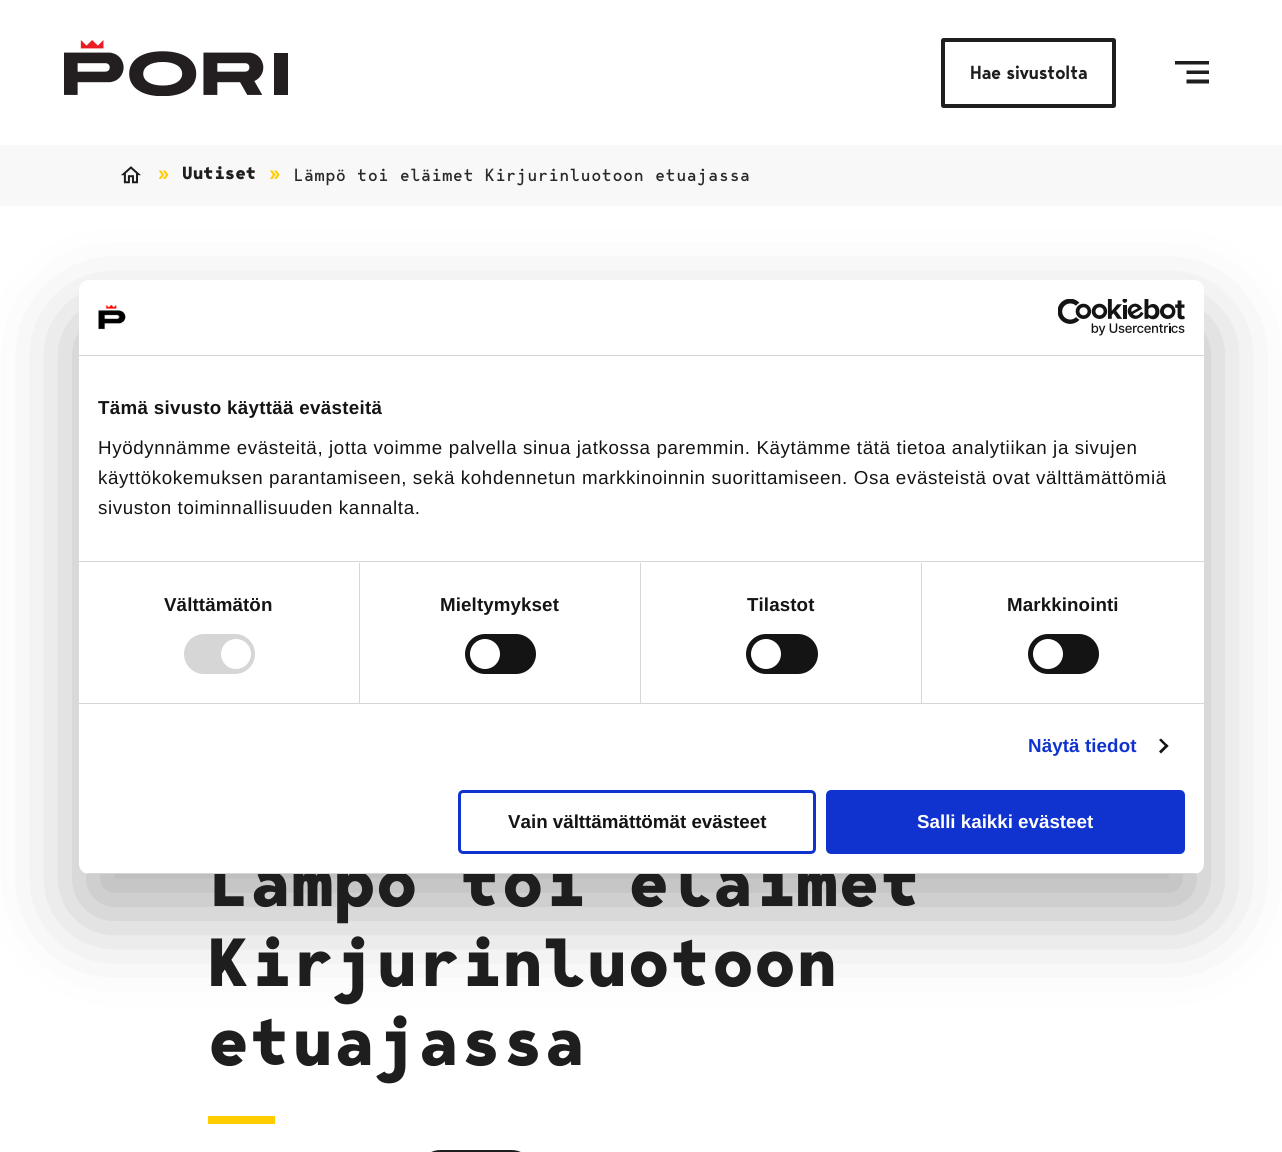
import math
import cairo

surface = cairo.ImageSurface(cairo.FORMAT_RGB24, 1282, 1152)
ctx = cairo.Context(surface)
options = cairo.FontOptions()
options.set_hint_metrics(cairo.HINT_METRICS_OFF)
options.set_hint_style(cairo.HINT_STYLE_NONE)
ctx.set_font_options(options)
ctx.set_miter_limit(4)


def set_color(code):
    ctx.set_source_rgb(*(v / 255 for v in bytes.fromhex(code[-6:])))


def draw_text(x, y, s, family, size, color, bold=False, italic=False):
    ctx.select_font_face(family, cairo.FONT_SLANT_ITALIC if italic else cairo.FONT_SLANT_NORMAL, cairo.FONT_WEIGHT_BOLD if bold else cairo.FONT_WEIGHT_NORMAL)
    ctx.set_font_size(size)
    set_color(color)
    ctx.move_to(x, y)
    ctx.show_text(s)


def draw_spaced(x, y, s, letter, word):
    ctx.move_to(x, y)
    for ch in s:
        ctx.show_text(ch)
        ctx.rel_move_to(letter + word * (ch == ' '), 0)


def fill_rect(x, y, w, h, color):
    set_color(color)
    ctx.rectangle(x, y, w, h)
    ctx.fill()


def rounded_rect(x, y, w, h, r):
    ctx.new_sub_path()
    for i, (u, v) in enumerate([(x + w - r, y + h - r), (x + r, y + h - r), (x + r, y + r), (x + w - r, y + r)]):
        ctx.arc(u, v, r, i * math.pi / 2, (i + 1) * math.pi / 2)
    ctx.close_path()


def draw_shadow(x, y, w, h, r, blur, alpha):
    ctx.push_group_with_content(cairo.CONTENT_ALPHA)
    ctx.set_operator(cairo.OPERATOR_SOURCE)
    for i in range(15, -16, -2):
        e = blur * i / 6
        if min(w, h) + 2 * e > 0:
            ctx.set_source_rgba(0, 0, 0, alpha * math.erfc((i - 1) / 8.5) / 2)
            rounded_rect(x - e, y - e, w + 2 * e, h + 2 * e, max(0, min(r + e + blur * .6, min(w, h) / 2 + e)))
            ctx.fill()
    ctx.mask(ctx.pop_group())


def draw_image(path, x, y, w, h):
    ctx.save()
    ctx.set_source_surface(cairo.ImageSurface.create_from_png(path), x, y)
    ctx.rectangle(x, y, w, h)
    ctx.fill()
    ctx.restore()


set_color("#ffffff")
ctx.paint()
draw_image("assets/img1.png", 64, 40, 224, 56)
rounded_rect(943, 40, 171, 66, 0.5)
set_color("#1e1e1e")
ctx.set_line_width(4)
ctx.stroke()
draw_text(970, 79, "Hae sivustolta", "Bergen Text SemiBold", 18.75, "#1e1e1e")
ctx.new_path()
ctx.move_to(1186.5, 83.5)
ctx.line_to(1209, 83.5)
ctx.line_to(1209, 79.5)
ctx.line_to(1186.5, 79.5)
ctx.close_path()
ctx.move_to(1175, 61)
ctx.line_to(1175, 64.5)
ctx.line_to(1209, 64.5)
ctx.line_to(1209, 61)
ctx.close_path()
ctx.move_to(1186.5, 74)
ctx.line_to(1209, 74)
ctx.line_to(1209, 70.5)
ctx.line_to(1186.5, 70.5)
ctx.close_path()
ctx.fill()
fill_rect(0, 145, 1282, 61, "#f8f8f8")
draw_image("assets/img2.png", 121, 166, 20, 18)
draw_image("assets/img3.png", 158, 170, 11, 9)
draw_text(182, 179, "Uutiset", "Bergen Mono", 17.5, "#1e1e1e", bold=True)
draw_image("assets/img4.png", 269, 170, 11, 9)
draw_text(293, 181, "Lämpö toi eläimet Kirjurinluotoon etuajassa", "Bergen Mono", 17.5, "#292929")
set_color("#000000")
draw_shadow(79, 320, 1125, 594, 10, 42.5, 0.3)
ctx.select_font_face("Bergen Mono", cairo.FONT_SLANT_NORMAL, cairo.FONT_WEIGHT_BOLD)
ctx.set_font_size(67.5)
set_color("#1e1e1e")
draw_spaced(208, 906, "Lämpö toi eläimet", 1, 0)
set_color("#ffffff")
rounded_rect(79, 280, 1125, 594, 10)
ctx.fill()
fill_rect(79, 355, 1125, 1, "#d6d6d6")
draw_image("assets/img5.png", 98, 305, 28, 25)
draw_image("assets/img6.png", 1058, 299, 127, 37)
fill_rect(79, 561, 1125, 1, "#d6d6d6")
ctx.select_font_face("Liberation Sans", cairo.FONT_SLANT_NORMAL, cairo.FONT_WEIGHT_BOLD)
ctx.set_font_size(18.75)
set_color("#141414")
draw_spaced(98, 414, "Tämä sivusto käyttää evästeitä", 0.3, 0)
ctx.select_font_face("Liberation Sans")
draw_spaced(98, 454, "Hyödynnämme evästeitä, jotta voimme palvella sinua jatkossa paremmin. Käytämme tätä tietoa analytiikan ja sivujen", 0.62, 0)
draw_spaced(98, 484, "käyttökokemuksen parantamiseen, sekä kohdennetun markkinoinnin suorittamiseen. Osa evästeistä ovat välttämättömiä", 0.62, 0)
draw_spaced(98, 514, "sivuston toiminnallisuuden kannalta.", 0.62, 0)
fill_rect(79, 703, 1125, 1, "#d6d6d6")
fill_rect(359, 563, 1, 140, "#d6d6d6")
ctx.select_font_face("Liberation Sans", cairo.FONT_SLANT_NORMAL, cairo.FONT_WEIGHT_BOLD)
set_color("#141414")
draw_spaced(164, 611, "Välttämätön", 0.1, 0)
set_color("#d6d6d6")
rounded_rect(184, 634, 71, 40, 20)
ctx.fill()
set_color("#ffffff")
ctx.arc(236, 654, 15, 0, 2 * math.pi)
ctx.fill()
fill_rect(640, 563, 1, 140, "#d6d6d6")
set_color("#141414")
draw_spaced(440, 611, "Mieltymykset", 0.1, 0)
rounded_rect(465, 634, 71, 40, 20)
ctx.fill()
set_color("#ffffff")
ctx.arc(485, 654, 15, 0, 2 * math.pi)
ctx.fill()
fill_rect(921, 563, 1, 140, "#d6d6d6")
set_color("#141414")
draw_spaced(747, 611, "Tilastot", 0.1, 0)
rounded_rect(746, 634, 72, 40, 20)
ctx.fill()
set_color("#ffffff")
ctx.arc(766, 654, 15, 0, 2 * math.pi)
ctx.fill()
set_color("#141414")
draw_spaced(1007, 611, "Markkinointi", 0.1, 0)
rounded_rect(1028, 634, 71, 40, 20)
ctx.fill()
set_color("#ffffff")
ctx.arc(1048, 654, 15, 0, 2 * math.pi)
ctx.fill()
set_color("#1032cf")
draw_spaced(1028, 752, "Näytä tiedot", 0.1, 0)
set_color("#141414")
ctx.new_path()
ctx.move_to(1161, 738.5)
ctx.line_to(1168.5, 746)
ctx.line_to(1166.5, 747.5)
ctx.line_to(1159, 740)
ctx.close_path()
ctx.fill()
ctx.new_path()
ctx.move_to(1166.5, 744)
ctx.line_to(1168.5, 746)
ctx.line_to(1161, 753.5)
ctx.line_to(1159, 751.5)
ctx.close_path()
ctx.fill()
ctx.save()
rounded_rect(79, 280, 1125, 594, 10)
ctx.clip()
fill_rect(79, 873, 1125, 1, "#d6d6d6")
ctx.restore()
rounded_rect(459.5, 791.5, 355, 61, 3.5)
set_color("#1032cf")
ctx.set_line_width(3)
ctx.stroke()
draw_text(508, 828, "Vain välttämättömät evästeet", "Liberation Sans", 18.75, "#141414", bold=True)
set_color("#1032cf")
rounded_rect(827.5, 791.5, 356, 61, 3.5)
ctx.fill_preserve()
ctx.stroke()
draw_text(917, 828, "Salli kaikki evästeet", "Liberation Sans", 18.75, "#ffffff", bold=True)
ctx.select_font_face("Bergen Mono", cairo.FONT_SLANT_NORMAL, cairo.FONT_WEIGHT_BOLD)
ctx.set_font_size(67.5)
set_color("#1e1e1e")
draw_spaced(208, 986, "Kirjurinluotoon", 1, 0)
draw_spaced(208, 1065, "etuajassa", 1, 0)
fill_rect(208, 1116, 67, 8, "#ffcd00")
rounded_rect(420, 1152, 112, 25, 20.5)
set_color("#1e1e1e")
ctx.set_line_width(4)
ctx.stroke()
surface.write_to_png("output.png")
